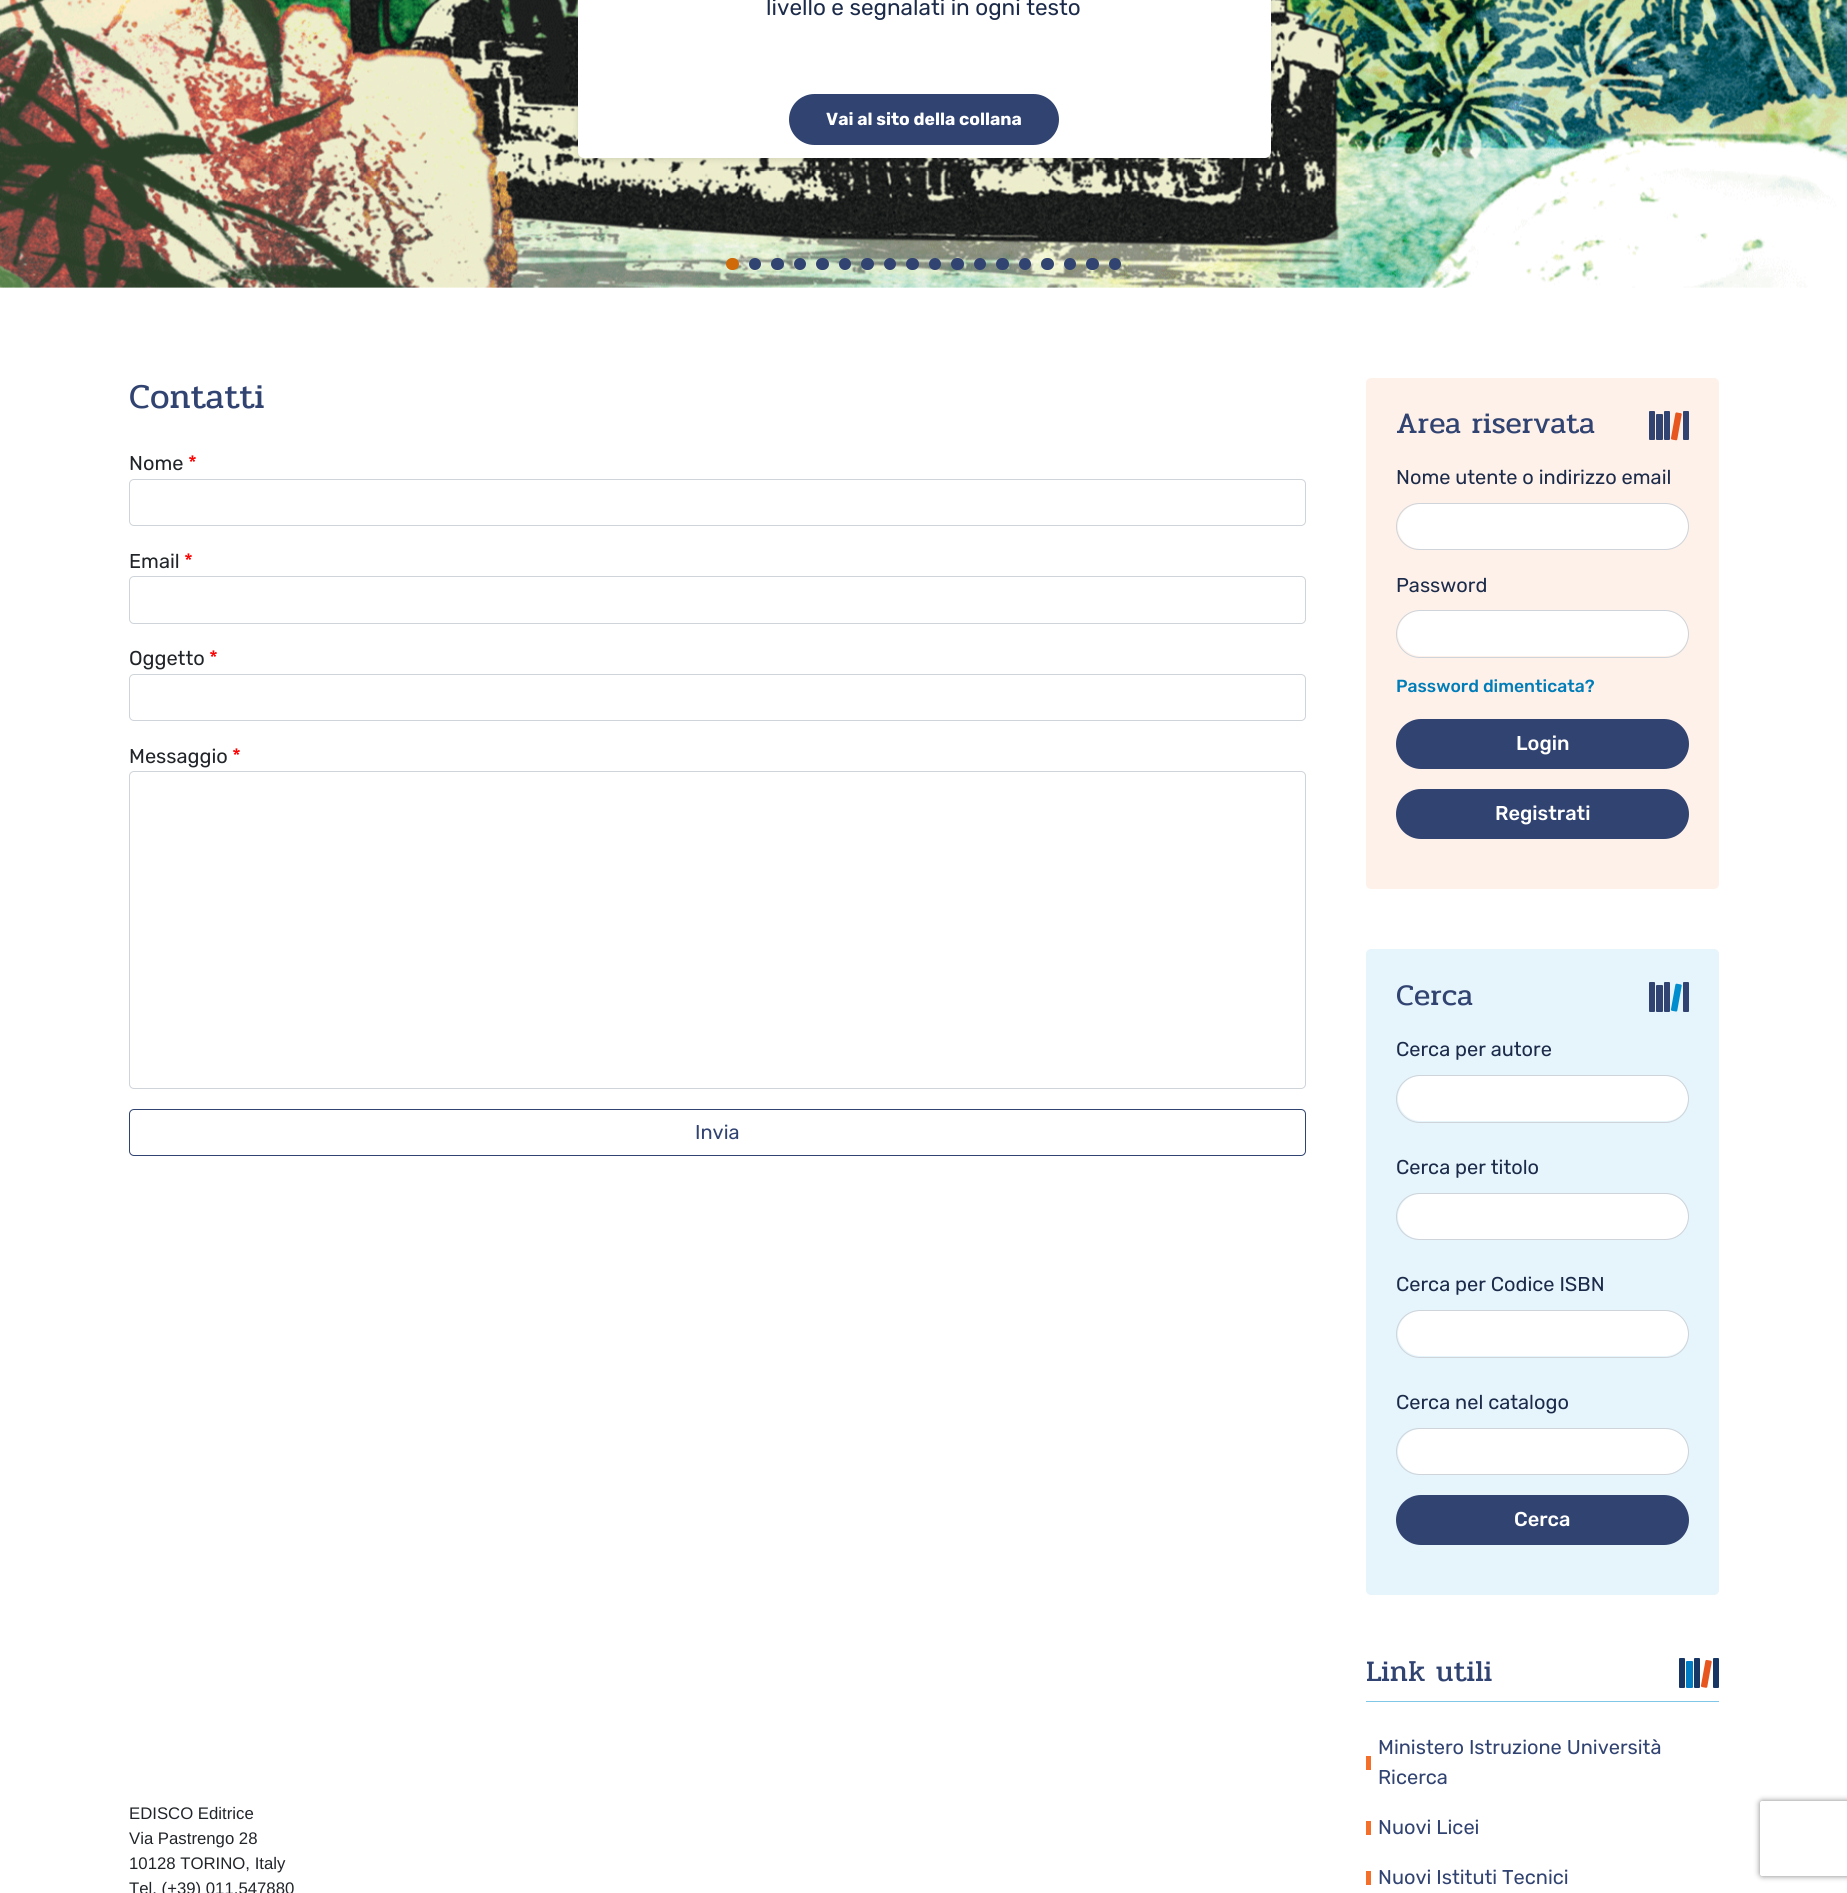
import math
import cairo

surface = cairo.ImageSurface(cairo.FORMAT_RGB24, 1847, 1893)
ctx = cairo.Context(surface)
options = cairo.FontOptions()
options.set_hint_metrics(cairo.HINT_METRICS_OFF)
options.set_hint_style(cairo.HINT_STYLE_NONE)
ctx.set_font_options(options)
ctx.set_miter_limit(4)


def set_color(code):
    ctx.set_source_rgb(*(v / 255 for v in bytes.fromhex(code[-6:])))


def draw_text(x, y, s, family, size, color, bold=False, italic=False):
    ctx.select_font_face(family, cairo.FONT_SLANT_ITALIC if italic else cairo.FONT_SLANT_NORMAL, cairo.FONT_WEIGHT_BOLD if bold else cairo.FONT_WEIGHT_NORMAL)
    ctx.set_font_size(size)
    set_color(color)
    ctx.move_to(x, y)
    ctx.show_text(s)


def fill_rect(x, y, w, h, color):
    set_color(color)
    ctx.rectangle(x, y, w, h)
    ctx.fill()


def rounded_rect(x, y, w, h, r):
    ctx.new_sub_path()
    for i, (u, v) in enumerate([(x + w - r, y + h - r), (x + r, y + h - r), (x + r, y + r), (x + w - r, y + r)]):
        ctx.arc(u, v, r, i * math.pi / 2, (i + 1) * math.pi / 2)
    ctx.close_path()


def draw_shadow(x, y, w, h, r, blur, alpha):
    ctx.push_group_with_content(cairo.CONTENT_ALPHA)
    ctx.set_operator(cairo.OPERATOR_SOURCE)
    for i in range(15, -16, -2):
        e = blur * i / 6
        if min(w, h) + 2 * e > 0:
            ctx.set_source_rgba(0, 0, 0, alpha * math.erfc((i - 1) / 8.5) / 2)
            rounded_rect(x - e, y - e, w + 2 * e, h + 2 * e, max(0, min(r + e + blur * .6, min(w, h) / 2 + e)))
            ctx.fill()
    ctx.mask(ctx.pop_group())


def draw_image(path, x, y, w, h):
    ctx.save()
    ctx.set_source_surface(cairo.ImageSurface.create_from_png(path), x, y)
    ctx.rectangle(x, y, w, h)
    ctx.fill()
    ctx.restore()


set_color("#ffffff")
ctx.paint()
draw_image("assets/img1.png", 0, 0, 1847, 288)
set_color("#000000")
draw_shadow(578, -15, 693, 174, 6, 3, 0.13)
set_color("#ffffff")
rounded_rect(578, -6, 693, 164, 6)
ctx.fill()
draw_text(766, 15, "livello e segnalati in ogni testo", "Rubik", 22.5, "#1c2b4a")
set_color("#314371")
rounded_rect(789, 94, 270, 51, 25.5)
ctx.fill()
draw_text(826, 125, "Vai al sito della collana", "Rubik", 17.5, "#ffffff", bold=True)
set_color("#d06a08")
rounded_rect(726, 258, 13, 12, 6)
ctx.fill()
set_color("#314371")
ctx.arc(755, 264, 6, 0, 2 * math.pi)
ctx.fill()
rounded_rect(771, 258, 13, 12, 6)
ctx.fill()
ctx.arc(800, 264, 6, 0, 2 * math.pi)
ctx.fill()
rounded_rect(816, 258, 13, 12, 6)
ctx.fill()
ctx.arc(845, 264, 6, 0, 2 * math.pi)
ctx.fill()
rounded_rect(861, 258, 13, 12, 6)
ctx.fill()
ctx.arc(890, 264, 6, 0, 2 * math.pi)
ctx.fill()
rounded_rect(906, 258, 13, 12, 6)
ctx.fill()
ctx.arc(935, 264, 6, 0, 2 * math.pi)
ctx.fill()
rounded_rect(951, 258, 13, 12, 6)
ctx.fill()
ctx.arc(980, 264, 6, 0, 2 * math.pi)
ctx.fill()
rounded_rect(996, 258, 13, 12, 6)
ctx.fill()
ctx.arc(1025, 264, 6, 0, 2 * math.pi)
ctx.fill()
rounded_rect(1041, 258, 13, 12, 6)
ctx.fill()
ctx.arc(1070, 264, 6, 0, 2 * math.pi)
ctx.fill()
rounded_rect(1086, 258, 13, 12, 6)
ctx.fill()
ctx.arc(1115, 264, 6, 0, 2 * math.pi)
ctx.fill()
draw_text(129, 408, "Contatti", "Pridi", 35, "#314371")
draw_text(129, 470, "Nome", "Rubik", 20, "#212529")
draw_text(188, 470, "*", "Rubik", 20, "#ff0000")
rounded_rect(129.5, 479.5, 1176, 46, 4.5)
set_color("#ced4da")
ctx.set_line_width(1)
ctx.stroke()
draw_text(129, 568, "Email", "Rubik", 20, "#212529")
draw_text(184, 568, "*", "Rubik", 20, "#ff0000")
rounded_rect(129.5, 576.5, 1176, 47, 4.5)
set_color("#ced4da")
ctx.stroke()
draw_text(129, 665, "Oggetto", "Rubik", 20, "#212529")
draw_text(209, 665, "*", "Rubik", 20, "#ff0000")
rounded_rect(129.5, 674.5, 1176, 46, 4.5)
set_color("#ced4da")
ctx.stroke()
draw_text(129, 763, "Messaggio", "Rubik", 20, "#212529")
draw_text(232, 763, "*", "Rubik", 20, "#ff0000")
rounded_rect(129.5, 771.5, 1176, 317, 4.5)
set_color("#ced4da")
ctx.stroke()
rounded_rect(129.5, 1109.5, 1176, 46, 4.5)
set_color("#314371")
ctx.stroke()
draw_text(695, 1139, "Invia", "Rubik", 20, "#314371")
draw_text(129, 1819, "EDISCO Editrice", "Liberation Sans", 16.75, "#212529")
draw_text(129, 1844, "Via Pastrengo 28", "Liberation Sans", 16.75, "#212529")
draw_text(129, 1869, "10128 TORINO, Italy", "Liberation Sans", 16.75, "#212529")
draw_text(129, 1894, "Tel. (+39) 011.547880", "Liberation Sans", 16.75, "#212529")
set_color("#fef1ea")
rounded_rect(1366, 378, 353, 511, 5)
ctx.fill()
draw_text(1396, 433, "Area riservata", "Pridi", 30, "#314371")
draw_image("assets/img2.png", 1649, 411, 40, 30)
draw_text(1396, 484, "Nome utente o indirizzo email", "Rubik", 20, "#1c2b4a")
set_color("#ffffff")
rounded_rect(1398, 504, 290, 45, 22.5)
ctx.fill()
rounded_rect(1396.5, 503.5, 292, 46, 23)
set_color("#ced4da")
ctx.stroke()
draw_text(1396, 592, "Password", "Rubik", 20, "#1c2b4a")
set_color("#ffffff")
rounded_rect(1398, 611, 290, 45, 22.5)
ctx.fill()
rounded_rect(1396.5, 610.5, 292, 47, 23.5)
set_color("#ced4da")
ctx.stroke()
draw_text(1396, 692, "Password dimenticata?", "Rubik Medium", 17.5, "#007db8")
set_color("#314371")
rounded_rect(1396, 719, 293, 50, 25)
ctx.fill()
draw_text(1516, 750, "Login", "Rubik Medium", 20, "#ffffff")
set_color("#314371")
rounded_rect(1396, 789, 293, 50, 25)
ctx.fill()
draw_text(1495, 820, "Registrati", "Rubik Medium", 20, "#ffffff")
set_color("#e6f4fb")
rounded_rect(1366, 949, 353, 646, 5)
ctx.fill()
draw_text(1396, 1005, "Cerca", "Pridi", 30, "#314371")
draw_image("assets/img3.png", 1649, 982, 40, 30)
draw_text(1396, 1056, "Cerca per autore", "Rubik", 20, "#1c2b4a")
set_color("#ffffff")
rounded_rect(1398, 1076, 290, 45, 22.5)
ctx.fill()
rounded_rect(1396.5, 1075.5, 292, 47, 23.5)
set_color("#ced4da")
ctx.stroke()
draw_text(1396, 1174, "Cerca per titolo", "Rubik", 20, "#1c2b4a")
set_color("#ffffff")
rounded_rect(1398, 1194, 290, 45, 22.5)
ctx.fill()
rounded_rect(1396.5, 1193.5, 292, 46, 23)
set_color("#ced4da")
ctx.stroke()
draw_text(1396, 1291, "Cerca per Codice ISBN", "Rubik", 20, "#1c2b4a")
set_color("#ffffff")
rounded_rect(1398, 1311, 290, 45, 22.5)
ctx.fill()
rounded_rect(1396.5, 1310.5, 292, 47, 23.5)
set_color("#ced4da")
ctx.stroke()
draw_text(1396, 1409, "Cerca nel catalogo", "Rubik", 20, "#1c2b4a")
set_color("#ffffff")
rounded_rect(1398, 1429, 290, 45, 22.5)
ctx.fill()
rounded_rect(1396.5, 1428.5, 292, 46, 23)
set_color("#ced4da")
ctx.stroke()
set_color("#314371")
rounded_rect(1396, 1495, 293, 50, 25)
ctx.fill()
draw_text(1514, 1526, "Cerca", "Rubik Medium", 20, "#ffffff")
draw_text(1366, 1681, "Link utili", "Pridi", 30, "#314371")
draw_image("assets/img4.png", 1679, 1658, 40, 30)
fill_rect(1366, 1701, 353, 1, "#80c7e7")
fill_rect(1366, 1756, 5, 14, "#f36f2a")
draw_text(1378, 1754, "Ministero Istruzione Università", "Rubik", 20, "#314371")
draw_text(1378, 1784, "Ricerca", "Rubik", 20, "#314371")
fill_rect(1366, 1821, 5, 14, "#f36f2a")
draw_text(1378, 1834, "Nuovi Licei", "Rubik", 20, "#314371")
fill_rect(1366, 1871, 5, 14, "#f36f2a")
draw_text(1378, 1884, "Nuovi Istituti Tecnici", "Rubik", 20, "#314371")
ctx.save()
ctx.set_fill_rule(cairo.FILL_RULE_EVEN_ODD)
ctx.new_path()
ctx.move_to(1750, 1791)
ctx.line_to(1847, 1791)
ctx.line_to(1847, 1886)
ctx.line_to(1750, 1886)
ctx.close_path()
ctx.move_to(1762.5, 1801)
ctx.line_to(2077.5, 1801)
ctx.curve_to(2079, 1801, 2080, 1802, 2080, 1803.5)
ctx.line_to(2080, 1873.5)
ctx.curve_to(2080, 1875, 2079, 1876, 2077.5, 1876)
ctx.line_to(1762.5, 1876)
ctx.curve_to(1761, 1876, 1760, 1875, 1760, 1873.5)
ctx.line_to(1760, 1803.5)
ctx.curve_to(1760, 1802, 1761, 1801, 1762.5, 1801)
ctx.close_path()
ctx.clip()
set_color("#808080")
draw_shadow(1760, 1801, 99, 75, 2.5, 3, 1)
ctx.restore()
surface.write_to_png("output.png")
